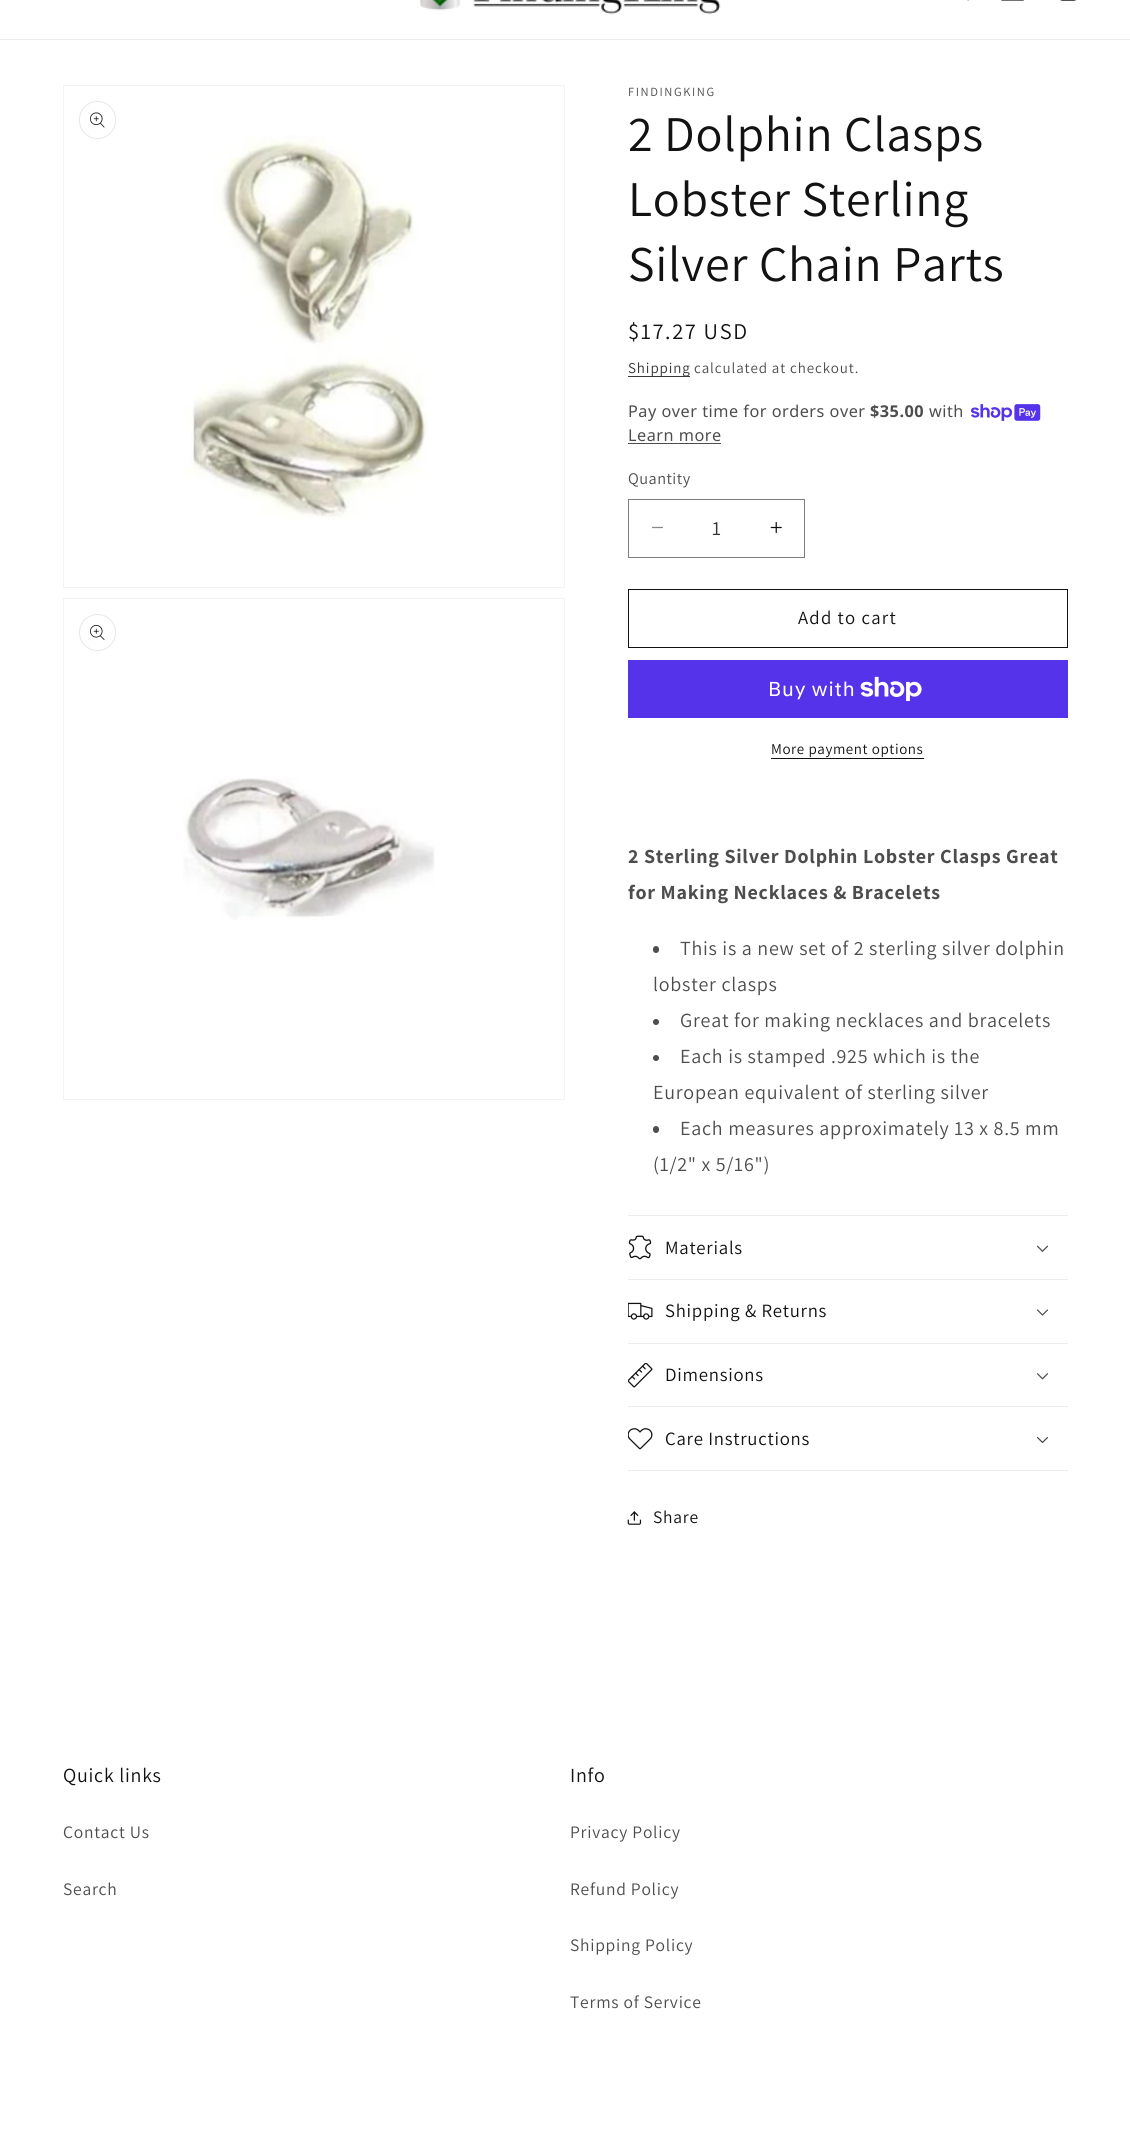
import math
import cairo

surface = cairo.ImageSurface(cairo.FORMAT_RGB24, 1130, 2153)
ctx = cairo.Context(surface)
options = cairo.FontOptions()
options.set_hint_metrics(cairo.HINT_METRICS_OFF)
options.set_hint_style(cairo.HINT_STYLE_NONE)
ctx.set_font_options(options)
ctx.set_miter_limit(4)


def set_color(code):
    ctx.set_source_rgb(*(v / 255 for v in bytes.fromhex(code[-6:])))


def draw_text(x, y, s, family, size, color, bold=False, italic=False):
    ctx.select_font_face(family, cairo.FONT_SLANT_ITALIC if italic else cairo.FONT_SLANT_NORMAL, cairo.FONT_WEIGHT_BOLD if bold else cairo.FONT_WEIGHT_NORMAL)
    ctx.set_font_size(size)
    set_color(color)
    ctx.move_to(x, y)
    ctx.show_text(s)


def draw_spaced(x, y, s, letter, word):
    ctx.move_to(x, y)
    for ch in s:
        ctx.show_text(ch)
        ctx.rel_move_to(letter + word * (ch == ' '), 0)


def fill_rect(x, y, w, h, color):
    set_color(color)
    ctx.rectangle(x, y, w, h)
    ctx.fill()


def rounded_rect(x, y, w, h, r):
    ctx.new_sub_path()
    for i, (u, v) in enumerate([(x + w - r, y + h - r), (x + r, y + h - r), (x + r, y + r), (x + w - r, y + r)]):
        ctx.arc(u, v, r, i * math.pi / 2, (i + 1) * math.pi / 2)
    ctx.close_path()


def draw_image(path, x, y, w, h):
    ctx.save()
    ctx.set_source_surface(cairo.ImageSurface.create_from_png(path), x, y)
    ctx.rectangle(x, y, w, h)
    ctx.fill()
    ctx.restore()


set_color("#ffffff")
ctx.paint()
fill_rect(0, 39, 1130, 1, "#ececec")
draw_image("assets/img1.png", 420, 0, 301, 15)
draw_image("assets/img2.png", 967, 0, 2, 1)
draw_image("assets/img3.png", 1001, 0, 23, 1)
draw_image("assets/img4.png", 1060, 0, 17, 1)
ctx.rectangle(63.5, 85.5, 501, 502)
set_color("#f3f3f3")
ctx.set_line_width(1)
ctx.stroke()
rounded_rect(79.5, 101.5, 36, 37, 18)
set_color("#e7e7e7")
ctx.stroke()
draw_image("assets/img5.png", 90, 112, 15, 16)
draw_image("assets/img6.png", 184, 135, 244, 385)
ctx.rectangle(63.5, 598.5, 501, 501)
set_color("#f3f3f3")
ctx.stroke()
ctx.arc(97.5, 632.5, 18, 0, 2 * math.pi)
set_color("#e7e7e7")
ctx.stroke()
draw_image("assets/img7.png", 90, 625, 15, 15)
draw_image("assets/img8.png", 183, 778, 252, 142)
ctx.select_font_face("Assistant")
ctx.set_font_size(12.5)
set_color("#4d4d4d")
draw_spaced(628, 96, "FINDINGKING", 1.6, 0)
ctx.set_font_size(50)
set_color("#121212")
draw_spaced(628, 151, "2 Dolphin Clasps", 0.75, 0)
draw_spaced(628, 216, "Lobster Sterling", 0.75, 0)
draw_spaced(628, 281, "Silver Chain Parts", 0.75, 0)
ctx.set_font_size(22.5)
draw_spaced(628, 339, "$17.27 USD", 1.6, 0)
fill_rect(628, 376, 62, 1, "#363636")
ctx.set_font_size(15)
set_color("#353535")
draw_spaced(628, 373, "Shipping", 0.9, 0)
set_color("#4d4d4d")
draw_spaced(694, 373, "calculated at checkout.", 0.9, 0)
ctx.select_font_face("Noto Sans")
ctx.set_font_size(16.25)
draw_spaced(628, 417, "Pay over time for orders over", 0.5, 0)
ctx.select_font_face("Noto Sans", cairo.FONT_SLANT_NORMAL, cairo.FONT_WEIGHT_BOLD)
draw_spaced(870, 417, "$35.00", 0.5, 0)
ctx.select_font_face("Noto Sans")
draw_spaced(929, 417, "with", 0.5, 0)
draw_image("assets/img9.png", 971, 404, 70, 17)
draw_spaced(628, 441, "Learn more", 0.5, 0)
fill_rect(628, 443, 93, 1, "#4d4d4d")
ctx.select_font_face("Assistant")
draw_spaced(628, 484, "Quantity", 0.5, 0)
draw_image("assets/img10.png", 652, 526, 11, 3)
draw_image("assets/img11.png", 770, 521, 12, 13)
ctx.rectangle(628.5, 499.5, 176, 58)
set_color("#7d7d7d")
ctx.stroke()
draw_text(712, 535, "1", "Assistant", 20, "#353535")
ctx.rectangle(628.5, 589.5, 439, 58)
set_color("#121212")
ctx.stroke()
ctx.set_font_size(18.75)
draw_spaced(798, 624, "Add to cart", 1.25, 0)
fill_rect(628, 660, 440, 58, "#5433eb")
ctx.select_font_face("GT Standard")
ctx.set_font_size(20)
set_color("#ffffff")
draw_spaced(768, 696, "Buy with", 0.75, 0)
draw_image("assets/img12.png", 860, 676, 62, 25)
ctx.select_font_face("Assistant")
ctx.set_font_size(15)
set_color("#121212")
draw_spaced(771, 754, "More payment options", 0.6, 0)
fill_rect(771, 758, 153, 1, "#121212")
ctx.select_font_face("Assistant", cairo.FONT_SLANT_NORMAL, cairo.FONT_WEIGHT_BOLD)
ctx.set_font_size(20)
set_color("#4d4d4d")
draw_spaced(628, 863, "2 Sterling Silver Dolphin Lobster Clasps Great", 0.75, 0)
draw_spaced(628, 899, "for Making Necklaces & Bracelets", 0.75, 0)
rounded_rect(653, 946, 6, 7, 3)
ctx.fill()
ctx.select_font_face("Assistant")
draw_spaced(680, 955, "This is a new set of 2 sterling silver dolphin", 0.75, 0)
draw_spaced(653, 991, "lobster clasps", 0.75, 0)
ctx.new_path()
ctx.arc(656, 1022, 3, 0, 2 * math.pi)
ctx.fill()
draw_spaced(680, 1027, "Great for making necklaces and bracelets", 0.75, 0)
ctx.new_path()
ctx.arc(656, 1058, 3, 0, 2 * math.pi)
ctx.fill()
draw_spaced(680, 1063, "Each is stamped .925 which is the", 0.75, 0)
draw_spaced(653, 1099, "European equivalent of sterling silver", 0.75, 0)
rounded_rect(653, 1126, 6, 7, 3)
ctx.fill()
draw_spaced(680, 1135, "Each measures approximately 13 x 8.5 mm", 0.75, 0)
draw_spaced(653, 1171, "(1/2\" x 5/16\")", 0.75, 0)
fill_rect(628, 1215, 440, 1, "#ececec")
fill_rect(628, 1279, 440, 1, "#ececec")
draw_image("assets/img13.png", 628, 1235, 24, 25)
ctx.set_font_size(18.75)
set_color("#121212")
draw_spaced(665, 1254, "Materials", 0.75, 0)
draw_image("assets/img14.png", 1036, 1245, 13, 7)
fill_rect(628, 1343, 440, 1, "#ececec")
draw_image("assets/img15.png", 628, 1302, 25, 18)
set_color("#121212")
draw_spaced(665, 1317, "Shipping & Returns", 0.75, 0)
draw_image("assets/img16.png", 1037, 1309, 11, 7)
fill_rect(628, 1406, 440, 1, "#ececec")
draw_image("assets/img17.png", 628, 1363, 25, 25)
set_color("#121212")
draw_spaced(665, 1381, "Dimensions", 0.75, 0)
draw_image("assets/img18.png", 1036, 1373, 13, 7)
fill_rect(628, 1470, 440, 1, "#ececec")
draw_image("assets/img19.png", 628, 1428, 25, 22)
set_color("#121212")
draw_spaced(665, 1445, "Care Instructions", 0.75, 0)
draw_image("assets/img20.png", 1036, 1436, 13, 8)
draw_image("assets/img21.png", 627, 1511, 15, 14)
ctx.set_font_size(17.5)
draw_spaced(653, 1523, "Share", 0.75, 0)
ctx.set_font_size(20)
draw_spaced(63, 1782, "Quick links", 0.75, 0)
ctx.set_font_size(17.5)
set_color("#4d4d4d")
draw_spaced(63, 1838, "Contact Us", 0.75, 0)
draw_spaced(63, 1895, "Search", 0.75, 0)
ctx.set_font_size(20)
set_color("#121212")
draw_spaced(570, 1782, "Info", 0.75, 0)
ctx.set_font_size(17.5)
set_color("#4d4d4d")
draw_spaced(570, 1838, "Privacy Policy", 0.75, 0)
draw_spaced(570, 1895, "Refund Policy", 0.75, 0)
draw_spaced(570, 1951, "Shipping Policy", 0.75, 0)
draw_spaced(570, 2008, "Terms of Service", 0.75, 0)
surface.write_to_png("output.png")
